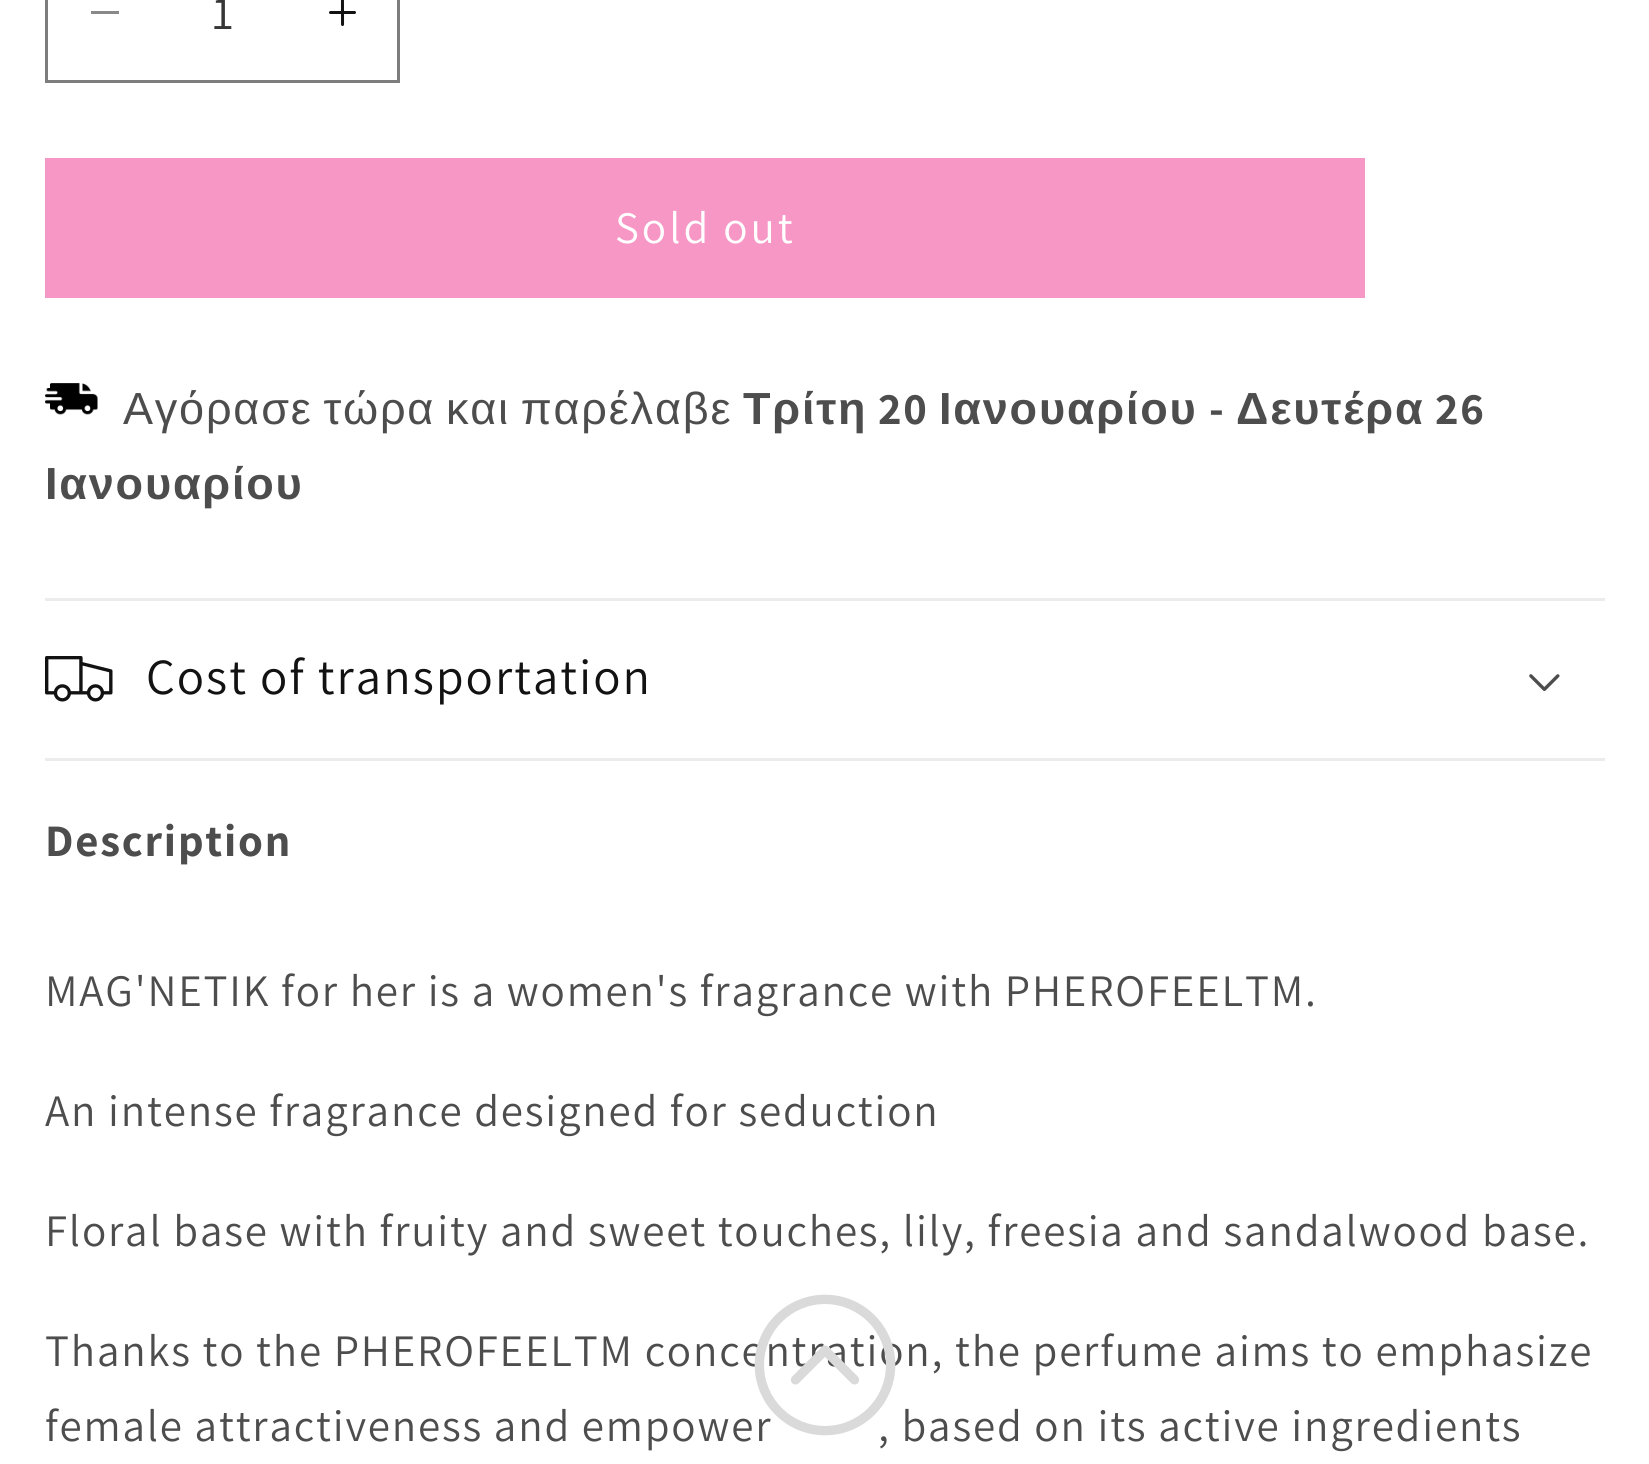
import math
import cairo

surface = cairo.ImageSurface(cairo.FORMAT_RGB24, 1649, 1464)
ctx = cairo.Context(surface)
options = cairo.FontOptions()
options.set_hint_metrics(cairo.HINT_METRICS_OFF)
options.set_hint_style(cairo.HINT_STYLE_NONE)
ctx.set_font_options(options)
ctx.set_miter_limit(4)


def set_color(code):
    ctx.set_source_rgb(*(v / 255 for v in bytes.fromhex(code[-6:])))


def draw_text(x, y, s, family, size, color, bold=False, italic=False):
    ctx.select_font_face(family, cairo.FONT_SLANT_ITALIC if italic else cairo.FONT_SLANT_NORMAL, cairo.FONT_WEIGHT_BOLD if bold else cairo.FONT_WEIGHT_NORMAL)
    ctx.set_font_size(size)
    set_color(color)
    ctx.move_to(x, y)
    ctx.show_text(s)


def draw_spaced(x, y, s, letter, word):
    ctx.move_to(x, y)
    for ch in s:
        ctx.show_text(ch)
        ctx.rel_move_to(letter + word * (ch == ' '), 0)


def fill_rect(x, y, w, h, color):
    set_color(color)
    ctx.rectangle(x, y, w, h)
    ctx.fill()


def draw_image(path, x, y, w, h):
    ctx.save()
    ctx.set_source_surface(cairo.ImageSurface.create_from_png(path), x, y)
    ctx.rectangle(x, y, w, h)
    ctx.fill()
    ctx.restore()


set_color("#ffffff")
ctx.paint()
fill_rect(91, 11, 28, 3, "#898989")
draw_image("assets/img1.png", 329, 0, 27, 26)
ctx.rectangle(46.5, -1.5, 352, 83)
set_color("#7d7d7d")
ctx.set_line_width(3)
ctx.stroke()
draw_text(212, 29, "1", "Assistant", 48, "#363636")
fill_rect(45, 158, 1320, 140, "#f797c6")
ctx.set_font_size(45)
set_color("#ffffff")
draw_spaced(615, 243, "Sold out", 3, 0)
draw_image("assets/img2.png", 45, 383, 53, 32)
ctx.select_font_face("Liberation Sans")
set_color("#4d4d4d")
draw_spaced(123, 424, "Αγόρασε τώρα και παρέλαβε", 1.8, -3.5)
ctx.select_font_face("Liberation Sans", cairo.FONT_SLANT_NORMAL, cairo.FONT_WEIGHT_BOLD)
draw_spaced(743, 424, "Τρίτη", 1.8, 0)
ctx.select_font_face("Assistant", cairo.FONT_SLANT_NORMAL, cairo.FONT_WEIGHT_BOLD)
draw_spaced(878, 424, "20", 1.8, 0)
ctx.select_font_face("Liberation Sans", cairo.FONT_SLANT_NORMAL, cairo.FONT_WEIGHT_BOLD)
draw_spaced(939, 424, "Ιανουαρίου", 1.8, 0)
ctx.select_font_face("Assistant", cairo.FONT_SLANT_NORMAL, cairo.FONT_WEIGHT_BOLD)
draw_spaced(1209, 424, "-", 1.8, 0)
ctx.select_font_face("Liberation Sans", cairo.FONT_SLANT_NORMAL, cairo.FONT_WEIGHT_BOLD)
draw_spaced(1236, 424, "Δευτέρα", 1.8, 0)
ctx.select_font_face("Assistant", cairo.FONT_SLANT_NORMAL, cairo.FONT_WEIGHT_BOLD)
draw_spaced(1435, 424, "26", 1.8, 0)
ctx.select_font_face("Liberation Sans", cairo.FONT_SLANT_NORMAL, cairo.FONT_WEIGHT_BOLD)
draw_spaced(45, 499, "Ιανουαρίου", 1.8, 0)
fill_rect(45, 598, 1560, 3, "#ececec")
fill_rect(45, 758, 1560, 3, "#ececec")
draw_image("assets/img3.png", 45, 656, 68, 46)
ctx.select_font_face("Assistant")
ctx.set_font_size(50.6)
set_color("#121212")
draw_spaced(146, 694, "Cost of transportation", 2, 0)
draw_image("assets/img4.png", 1529, 674, 31, 17)
ctx.select_font_face("Assistant", cairo.FONT_SLANT_NORMAL, cairo.FONT_WEIGHT_BOLD)
ctx.set_font_size(45)
set_color("#4d4d4d")
draw_spaced(45, 856, "Description", 1.8, 0)
ctx.select_font_face("Assistant")
draw_spaced(45, 1006, "MAG'NETIK for her is a women's fragrance with PHEROFEELTM.", 1.8, 0)
draw_spaced(45, 1126, "An intense fragrance designed for seduction", 1.8, 0)
draw_spaced(45, 1246, "Floral base with fruity and sweet touches, lily, freesia and sandalwood base.", 1.8, 0)
draw_spaced(45, 1366, "Thanks to the PHEROFEELTM concentration, the perfume aims to emphasize", 1.8, 0)
draw_spaced(45, 1441, "female attractiveness and empower", 1.8, 0)
draw_spaced(878, 1441, ", based on its active ingredients", 1.8, 0)
draw_image("assets/img5.png", 754, 1294, 142, 142)
surface.write_to_png("output.png")
